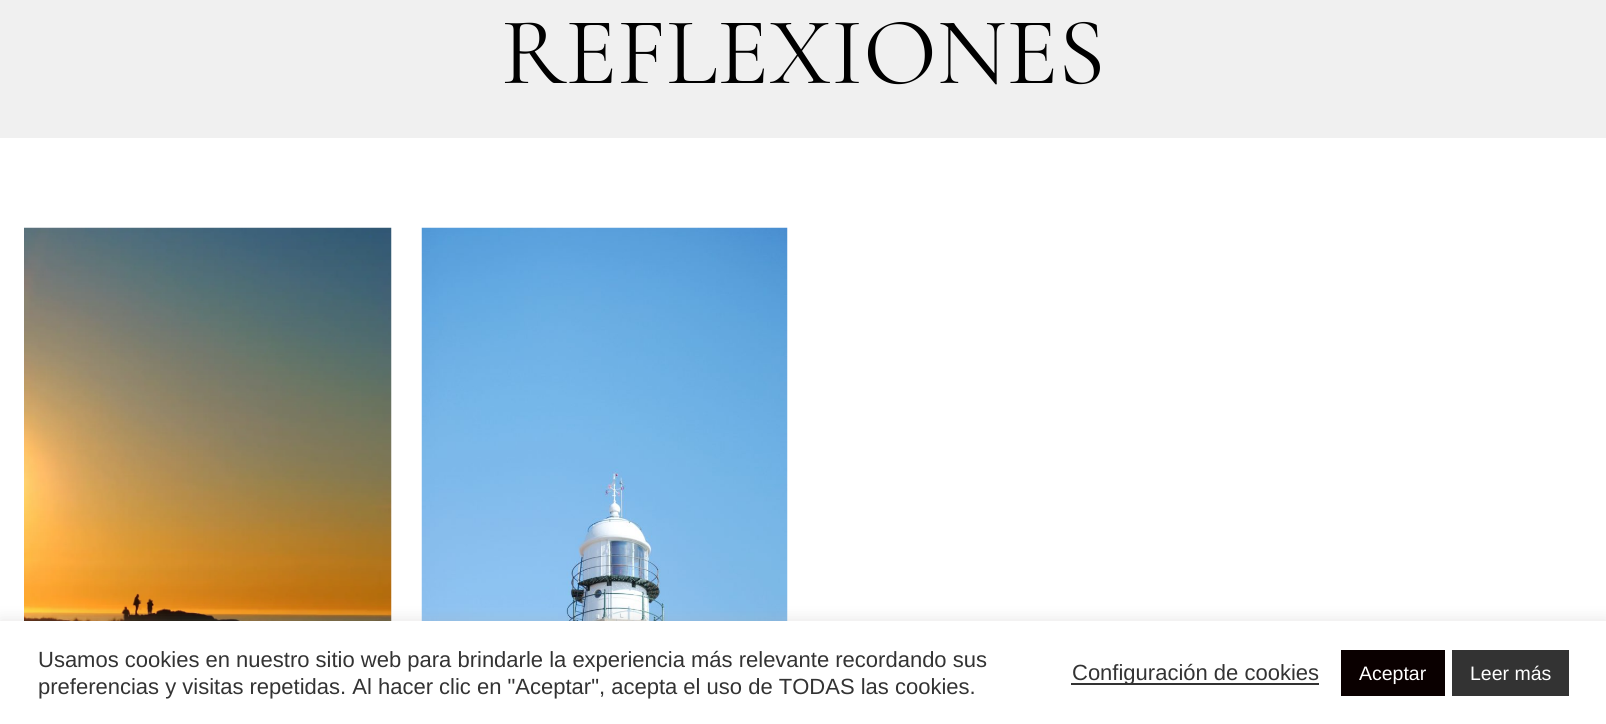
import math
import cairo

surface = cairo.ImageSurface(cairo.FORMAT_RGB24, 1606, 724)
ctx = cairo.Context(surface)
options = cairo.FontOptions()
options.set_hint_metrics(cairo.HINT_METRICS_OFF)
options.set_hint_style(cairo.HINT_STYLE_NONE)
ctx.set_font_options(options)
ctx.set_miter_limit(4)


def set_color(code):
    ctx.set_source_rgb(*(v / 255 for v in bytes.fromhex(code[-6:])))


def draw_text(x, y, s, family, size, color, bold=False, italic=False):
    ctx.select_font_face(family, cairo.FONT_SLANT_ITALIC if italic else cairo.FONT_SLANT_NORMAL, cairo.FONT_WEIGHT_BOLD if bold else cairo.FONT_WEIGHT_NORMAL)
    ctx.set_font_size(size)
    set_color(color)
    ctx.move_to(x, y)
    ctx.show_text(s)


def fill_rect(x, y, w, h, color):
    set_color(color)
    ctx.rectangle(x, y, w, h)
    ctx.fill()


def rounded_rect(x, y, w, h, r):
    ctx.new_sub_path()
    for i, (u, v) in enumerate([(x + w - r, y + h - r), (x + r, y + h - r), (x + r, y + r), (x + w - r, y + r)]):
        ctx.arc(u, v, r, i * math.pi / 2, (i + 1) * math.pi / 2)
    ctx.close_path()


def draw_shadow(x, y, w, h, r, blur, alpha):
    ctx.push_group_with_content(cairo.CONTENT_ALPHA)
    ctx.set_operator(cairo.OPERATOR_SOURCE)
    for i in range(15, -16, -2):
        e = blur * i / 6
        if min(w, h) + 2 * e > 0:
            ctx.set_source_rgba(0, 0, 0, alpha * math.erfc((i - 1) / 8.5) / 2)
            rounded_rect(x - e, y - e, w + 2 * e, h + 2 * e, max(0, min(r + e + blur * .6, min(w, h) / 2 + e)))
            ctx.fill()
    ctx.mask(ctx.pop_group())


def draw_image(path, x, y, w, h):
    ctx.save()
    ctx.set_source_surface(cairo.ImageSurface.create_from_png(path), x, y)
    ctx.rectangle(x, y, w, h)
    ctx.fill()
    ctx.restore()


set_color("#ffffff")
ctx.paint()
fill_rect(0, 0, 1606, 138, "#f0f0f0")
draw_text(501, 83, "REFLEXIONES", "Cormorant Garamond", 96, "#000000")
draw_image("assets/img1.png", 24, 227, 368, 394)
draw_image("assets/img2.png", 421, 227, 367, 394)
set_color("#acabab")
draw_shadow(0, 620, 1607, 103, 0, 7.5, 0.3)
fill_rect(0, 621, 1606, 103, "#ffffff")
draw_text(38, 667, "Usamos cookies en nuestro sitio web para brindarle la experiencia más relevante recordando sus", "Liberation Sans", 22, "#333333")
draw_text(38, 694, "preferencias y visitas repetidas. Al hacer clic en \"Aceptar\", acepta el uso de TODAS las cookies.", "Liberation Sans", 22, "#333333")
fill_rect(1071, 683, 248, 2, "#333333")
draw_text(1072, 680, "Configuración de cookies", "Liberation Sans", 22, "#333333")
fill_rect(1341, 650, 104, 46, "#0a0000")
draw_text(1359, 680, "Aceptar", "Liberation Sans", 19.5, "#ffffff")
fill_rect(1452, 650, 117, 46, "#333333")
draw_text(1470, 680, "Leer más", "Liberation Sans", 19.5, "#ffffff")
surface.write_to_png("output.png")
